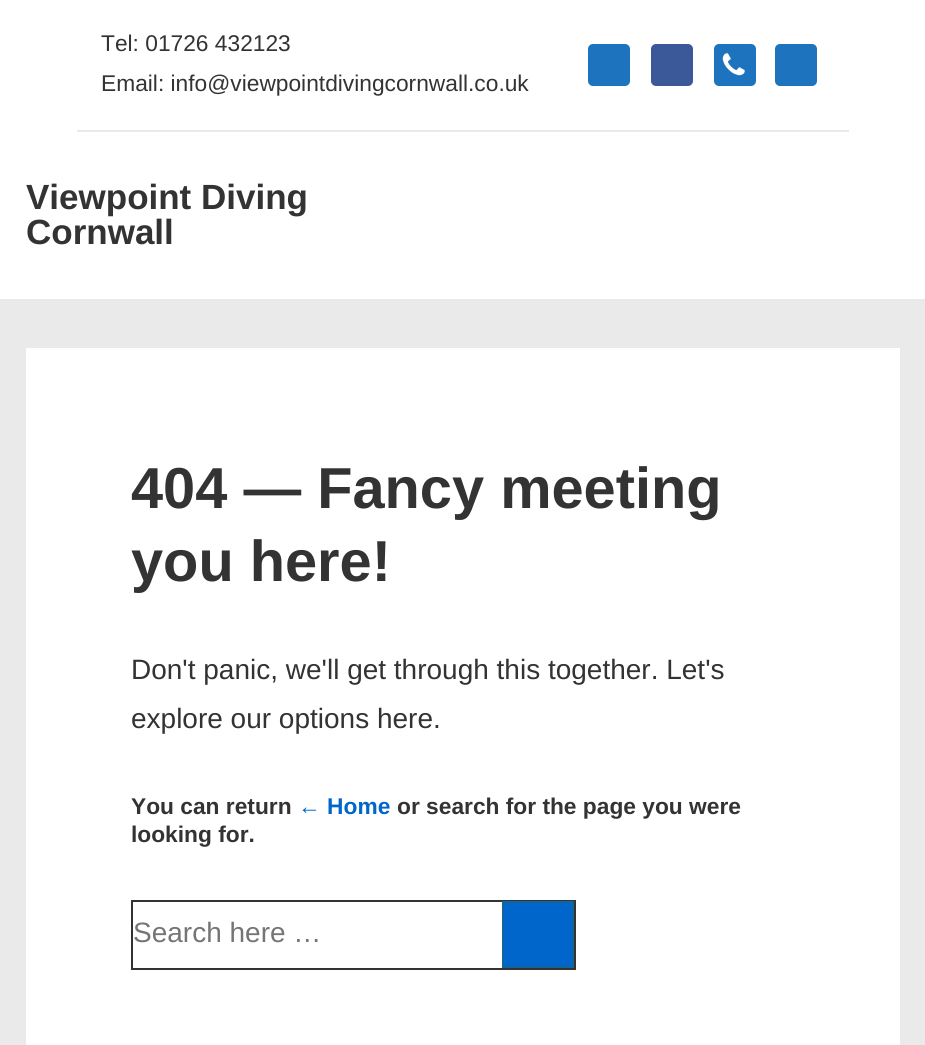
import math
import cairo

surface = cairo.ImageSurface(cairo.FORMAT_RGB24, 925, 1045)
ctx = cairo.Context(surface)
options = cairo.FontOptions()
options.set_hint_metrics(cairo.HINT_METRICS_OFF)
options.set_hint_style(cairo.HINT_STYLE_NONE)
ctx.set_font_options(options)
ctx.set_miter_limit(4)


def set_color(code):
    ctx.set_source_rgb(*(v / 255 for v in bytes.fromhex(code[-6:])))


def draw_text(x, y, s, family, size, color, bold=False, italic=False):
    ctx.select_font_face(family, cairo.FONT_SLANT_ITALIC if italic else cairo.FONT_SLANT_NORMAL, cairo.FONT_WEIGHT_BOLD if bold else cairo.FONT_WEIGHT_NORMAL)
    ctx.set_font_size(size)
    set_color(color)
    ctx.move_to(x, y)
    ctx.show_text(s)


def fill_rect(x, y, w, h, color):
    set_color(color)
    ctx.rectangle(x, y, w, h)
    ctx.fill()


def rounded_rect(x, y, w, h, r):
    ctx.new_sub_path()
    for i, (u, v) in enumerate([(x + w - r, y + h - r), (x + r, y + h - r), (x + r, y + r), (x + w - r, y + r)]):
        ctx.arc(u, v, r, i * math.pi / 2, (i + 1) * math.pi / 2)
    ctx.close_path()


def draw_image(path, x, y, w, h):
    ctx.save()
    ctx.set_source_surface(cairo.ImageSurface.create_from_png(path), x, y)
    ctx.rectangle(x, y, w, h)
    ctx.fill()
    ctx.restore()


set_color("#eaeaea")
ctx.paint()
fill_rect(0, 0, 925, 299, "#ffffff")
fill_rect(77, 130, 772, 2, "#eaeaea")
draw_text(101, 51, "Tel: 01726 432123", "Liberation Sans", 22.75, "#333333")
draw_text(101, 91, "Email: info@viewpointdivingcornwall.co.uk", "Liberation Sans", 22.75, "#333333")
set_color("#1e73be")
rounded_rect(588, 44, 42, 42, 5)
ctx.fill()
set_color("#3b5998")
rounded_rect(651, 44, 42, 42, 5)
ctx.fill()
set_color("#1e73be")
rounded_rect(714, 44, 42, 42, 5)
ctx.fill()
draw_image("assets/img1.png", 722, 53, 23, 23)
rounded_rect(775, 44, 42, 42, 5)
ctx.fill()
draw_text(26, 209, "Viewpoint Diving", "Liberation Sans", 35, "#333333", bold=True)
draw_text(26, 244, "Cornwall", "Liberation Sans", 35, "#333333", bold=True)
fill_rect(26, 348, 874, 697, "#ffffff")
draw_text(131, 508, "404 — Fancy meeting", "Liberation Sans", 57.75, "#333333", bold=True)
draw_text(131, 581, "you here!", "Liberation Sans", 57.75, "#333333", bold=True)
draw_text(131, 679, "Don't panic, we'll get through this together. Let's", "Liberation Sans", 28, "#333333")
draw_text(131, 728, "explore our options here.", "Liberation Sans", 28, "#333333")
draw_text(131, 814, "You can return", "Liberation Sans", 22.75, "#333333", bold=True)
draw_text(298, 814, "← Home", "Liberation Sans", 22.75, "#0066cc", bold=True)
draw_text(397, 814, "or search for the page you were", "Liberation Sans", 22.75, "#333333", bold=True)
draw_text(131, 842, "looking for.", "Liberation Sans", 22.75, "#333333", bold=True)
ctx.rectangle(132, 901, 443, 68)
ctx.stroke()
draw_text(133, 942, "Search here …", "Liberation Sans", 28, "#757575")
set_color("#0066cc")
ctx.rectangle(503, 902, 70, 65)
ctx.fill_preserve()
set_color("#10659c")
ctx.stroke()
surface.write_to_png("output.png")
